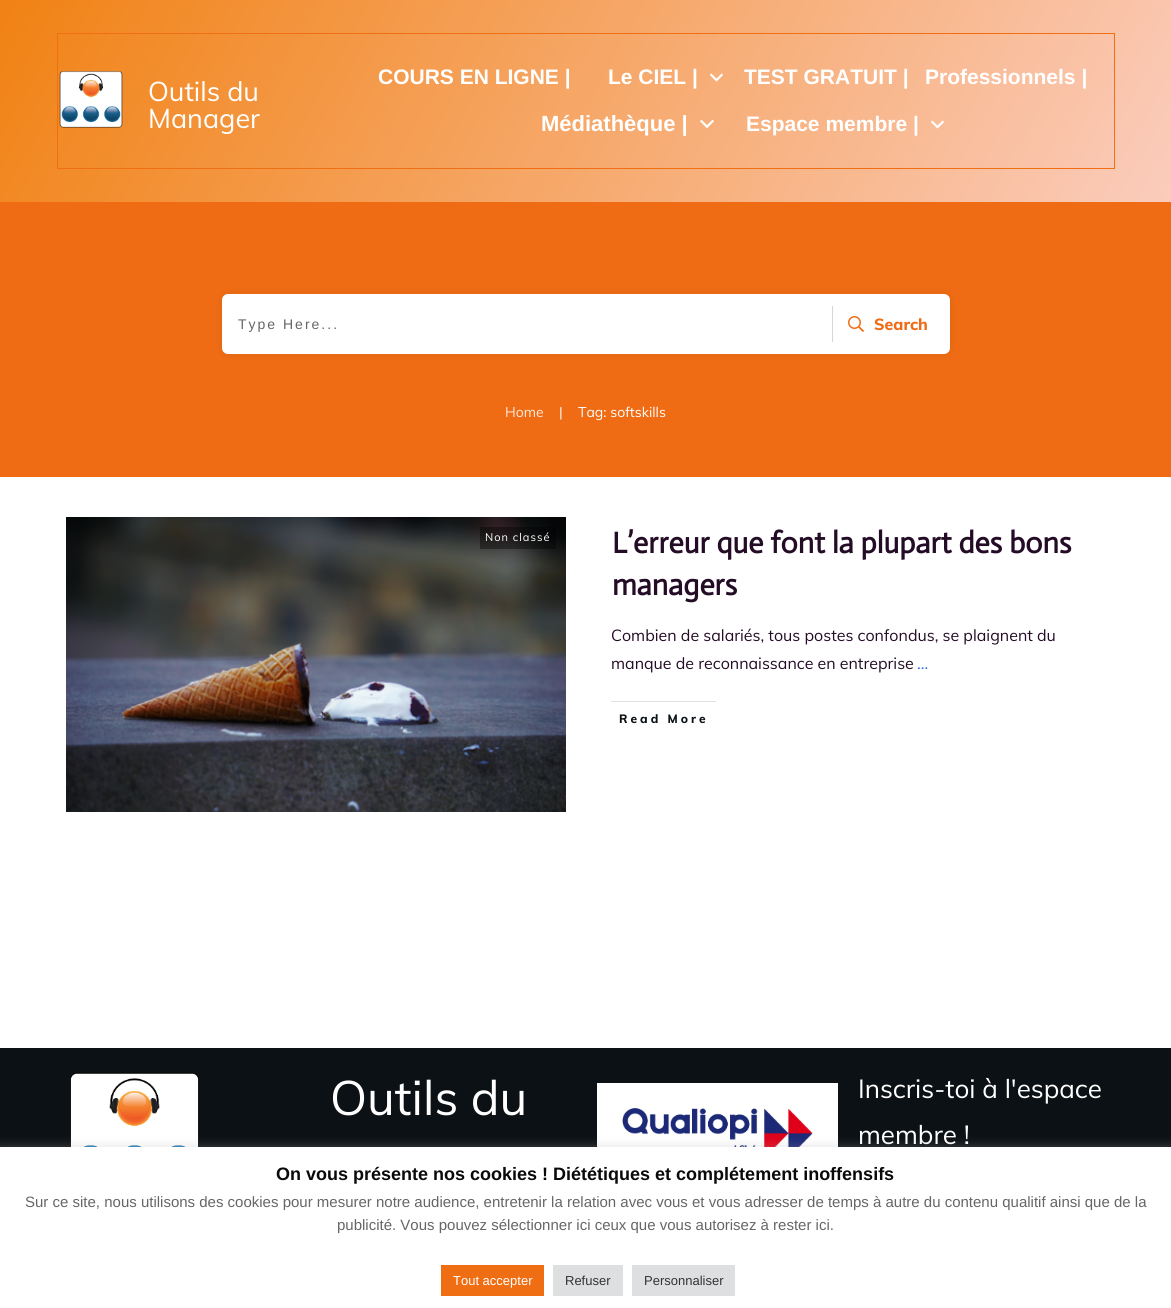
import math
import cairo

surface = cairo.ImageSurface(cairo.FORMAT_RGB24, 1171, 1308)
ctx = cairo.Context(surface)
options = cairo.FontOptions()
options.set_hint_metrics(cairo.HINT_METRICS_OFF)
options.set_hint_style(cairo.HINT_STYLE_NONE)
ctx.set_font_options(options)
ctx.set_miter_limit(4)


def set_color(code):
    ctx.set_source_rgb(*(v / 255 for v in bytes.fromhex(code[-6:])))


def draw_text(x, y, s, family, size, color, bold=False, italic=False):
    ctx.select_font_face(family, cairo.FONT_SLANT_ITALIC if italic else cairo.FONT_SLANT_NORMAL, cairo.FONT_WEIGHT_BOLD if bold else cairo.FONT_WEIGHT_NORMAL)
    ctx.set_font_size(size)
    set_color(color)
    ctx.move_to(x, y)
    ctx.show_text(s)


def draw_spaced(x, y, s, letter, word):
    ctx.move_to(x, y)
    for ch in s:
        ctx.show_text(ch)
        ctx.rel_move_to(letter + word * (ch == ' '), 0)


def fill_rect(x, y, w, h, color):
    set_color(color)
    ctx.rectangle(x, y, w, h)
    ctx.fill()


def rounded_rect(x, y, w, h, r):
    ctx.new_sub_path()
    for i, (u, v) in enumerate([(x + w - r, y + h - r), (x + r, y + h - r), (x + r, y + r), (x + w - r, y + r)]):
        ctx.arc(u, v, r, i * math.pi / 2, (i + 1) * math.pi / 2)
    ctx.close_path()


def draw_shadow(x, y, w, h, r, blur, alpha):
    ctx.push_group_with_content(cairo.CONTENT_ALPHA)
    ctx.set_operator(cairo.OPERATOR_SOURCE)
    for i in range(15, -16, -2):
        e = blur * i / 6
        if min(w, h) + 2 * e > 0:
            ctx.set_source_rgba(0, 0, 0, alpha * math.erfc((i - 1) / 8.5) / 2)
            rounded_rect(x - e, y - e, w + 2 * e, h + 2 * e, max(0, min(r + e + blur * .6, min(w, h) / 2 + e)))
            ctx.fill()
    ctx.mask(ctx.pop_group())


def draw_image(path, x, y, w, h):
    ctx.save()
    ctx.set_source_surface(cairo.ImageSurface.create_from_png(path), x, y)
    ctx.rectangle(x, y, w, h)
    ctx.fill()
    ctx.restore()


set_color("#ffffff")
ctx.paint()
gradient = cairo.LinearGradient(95, -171, 1076, 373)
gradient.add_color_stop_rgba(0, 0.945, 0.51, 0.078, 1)
gradient.add_color_stop_rgba(1, 0.984, 0.8, 0.737, 1)
ctx.set_source(gradient)
ctx.rectangle(0, 0, 1171, 202)
ctx.fill()
ctx.rectangle(57.5, 33.5, 1057, 135)
set_color("#f06e14")
ctx.set_line_width(1)
ctx.stroke()
draw_image("assets/img1.png", 59, 71, 64, 57)
draw_text(148, 101, "Outils du", "Muli", 27, "#ffffff")
draw_text(148, 128, "Manager", "Muli", 27, "#ffffff")
draw_text(378, 84, "COURS EN LIGNE |", "Liberation Sans", 21, "#ffffff", bold=True)
draw_text(608, 84, "Le CIEL |", "Liberation Sans", 21, "#ffffff", bold=True)
draw_image("assets/img2.png", 710, 73, 13, 9)
draw_text(744, 84, "TEST GRATUIT |", "Liberation Sans", 21, "#ffffff", bold=True)
draw_text(925, 84, "Professionnels |", "Liberation Sans", 21, "#ffffff", bold=True)
draw_text(541, 131, "Médiathèque |", "Liberation Sans", 22, "#ffffff", bold=True)
draw_image("assets/img3.png", 700, 120, 14, 8)
draw_text(746, 131, "Espace membre |", "Liberation Sans", 21, "#ffffff", bold=True)
draw_image("assets/img4.png", 931, 120, 13, 9)
fill_rect(0, 202, 1171, 275, "#f06c14")
set_color("#000000")
draw_shadow(222, 294, 728, 60, 6, 5.5, 0.08)
set_color("#ffffff")
rounded_rect(222, 294, 728, 60, 6)
ctx.fill()
ctx.select_font_face("Liberation Sans")
ctx.set_font_size(14)
set_color("#666666")
draw_spaced(238, 329, "Type Here...", 2, 0)
fill_rect(832, 306, 1, 36, "#d6d6d6")
draw_image("assets/img5.png", 848, 316, 16, 16)
draw_text(874, 330, "Search", "Muli ExtraBold", 16, "#f06c14")
draw_text(505, 417, "Home", "Muli", 14, "#fde9dc")
draw_text(559, 417, "|", "Muli", 14, "#ffffff")
draw_text(578, 417, "Tag: softskills", "Muli", 14, "#ffffff")
draw_image("assets/img6.png", 66, 517, 500, 295)
ctx.set_source_rgba(0, 0, 0, 0.4)
ctx.rectangle(480, 527, 76, 22)
ctx.fill()
ctx.set_font_size(11)
set_color("#ffffff")
draw_spaced(485, 541, "Non classé", 1, 0)
draw_text(612, 553, "L’erreur que font la plupart des bons", "Actor", 30, "#240c26", bold=True)
draw_text(612, 595, "managers", "Actor", 30, "#240c26", bold=True)
draw_text(611, 641, "Combien de salariés, tous postes confondus, se plaignent du", "Muli", 16, "#240c26")
draw_text(611, 669, "manque de reconnaissance en entreprise", "Muli", 16, "#240c26")
draw_text(917, 669, "...", "Muli", 16, "#3065de")
fill_rect(611, 701, 105, 1, "#e0e0e0")
ctx.select_font_face("Muli ExtraBold")
ctx.set_font_size(12)
set_color("#0c1115")
draw_spaced(619, 723, "Read More", 3, 0)
fill_rect(0, 1048, 1171, 99, "#0c1115")
draw_image("assets/img7.png", 70, 1072, 129, 75)
draw_text(330, 1115, "Outils du", "Muli", 48, "#ffffff")
draw_image("assets/img8.png", 597, 1083, 241, 64)
draw_text(858, 1098, "Inscris-toi à l'espace", "Muli", 26, "#ffffff")
draw_text(858, 1144, "membre !", "Muli", 26, "#ffffff")
set_color("#acabab")
draw_shadow(0, 1146, 1171, 161, 0, 5, 0.3)
fill_rect(0, 1147, 1171, 161, "#ffffff")
draw_text(276, 1180, "On vous présente nos cookies ! Diététiques et complétement inoffensifs", "Liberation Sans", 18, "#0a0a0a", bold=True)
draw_text(25, 1207, "Sur ce site, nous utilisons des cookies pour mesurer notre audience, entretenir la relation avec vous et vous adresser de temps à autre du contenu qualitif ainsi que de la", "Liberation Sans", 15, "#666666")
draw_text(337, 1230, "publicité. Vous pouvez sélectionner ici ceux que vous autorisez à rester ici.", "Liberation Sans", 15, "#666666")
fill_rect(441, 1265, 103, 31, "#f06e13")
draw_text(453, 1285, "Tout accepter", "Liberation Sans", 13, "#ffffff")
fill_rect(553, 1265, 70, 31, "#dedfe0")
draw_text(565, 1285, "Refuser", "Liberation Sans", 13, "#333333")
fill_rect(632, 1265, 103, 31, "#dedfe0")
draw_text(644, 1285, "Personnaliser", "Liberation Sans", 13, "#333333")
surface.write_to_png("output.png")
